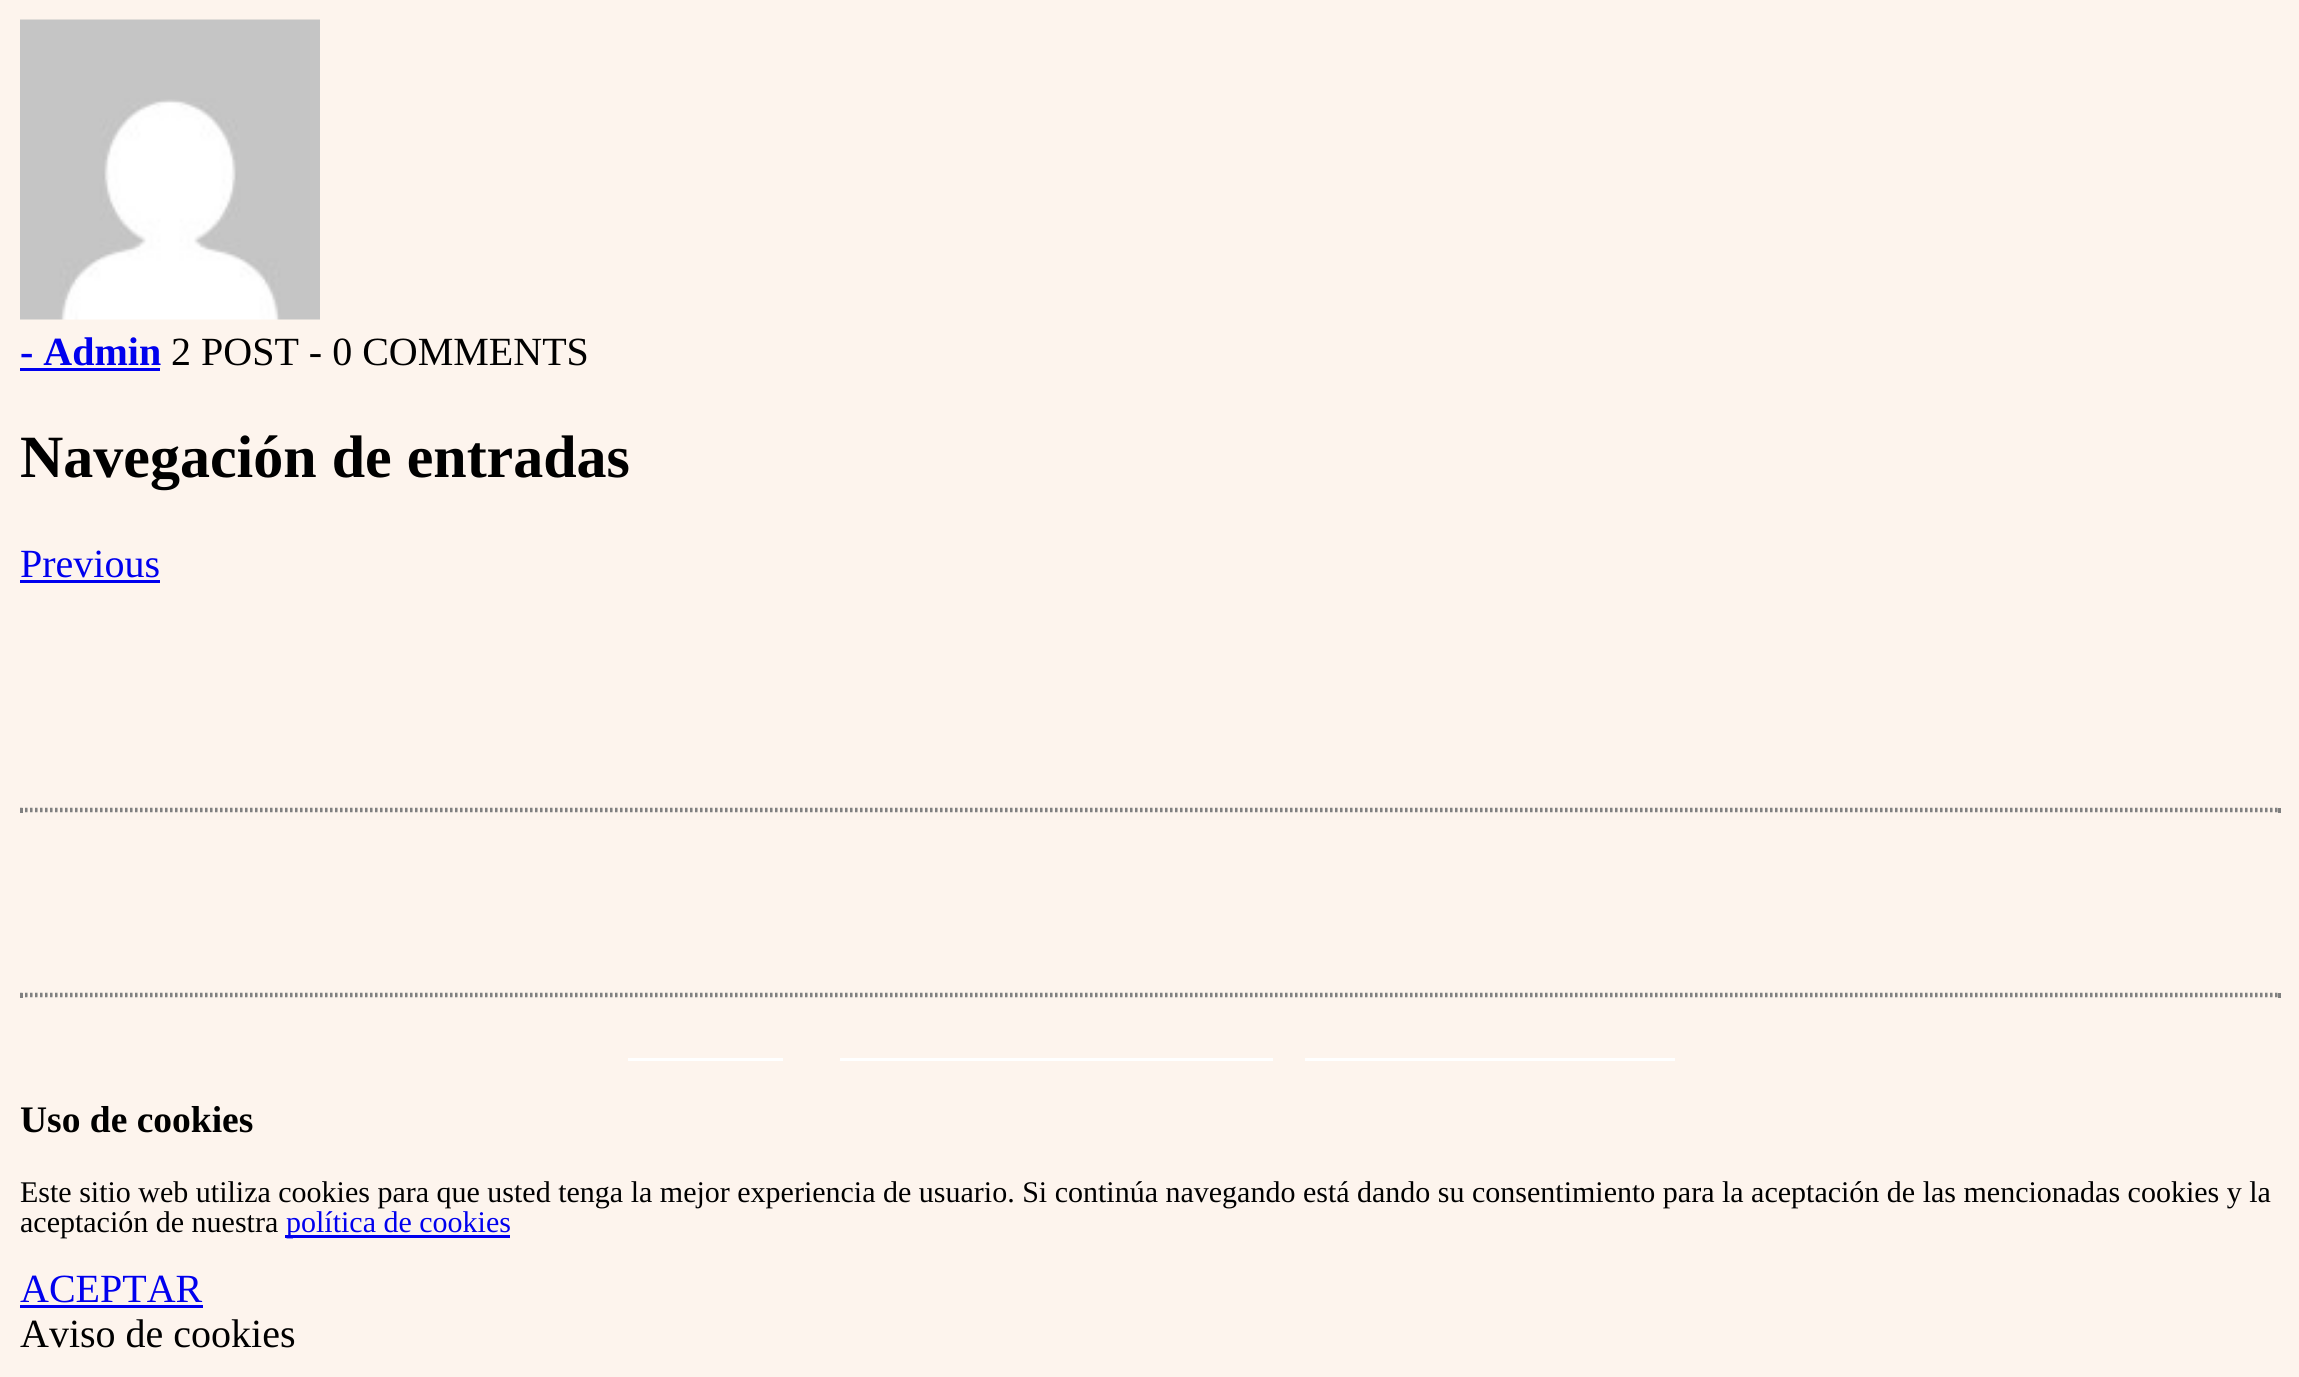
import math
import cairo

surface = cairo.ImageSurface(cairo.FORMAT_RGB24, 2299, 1377)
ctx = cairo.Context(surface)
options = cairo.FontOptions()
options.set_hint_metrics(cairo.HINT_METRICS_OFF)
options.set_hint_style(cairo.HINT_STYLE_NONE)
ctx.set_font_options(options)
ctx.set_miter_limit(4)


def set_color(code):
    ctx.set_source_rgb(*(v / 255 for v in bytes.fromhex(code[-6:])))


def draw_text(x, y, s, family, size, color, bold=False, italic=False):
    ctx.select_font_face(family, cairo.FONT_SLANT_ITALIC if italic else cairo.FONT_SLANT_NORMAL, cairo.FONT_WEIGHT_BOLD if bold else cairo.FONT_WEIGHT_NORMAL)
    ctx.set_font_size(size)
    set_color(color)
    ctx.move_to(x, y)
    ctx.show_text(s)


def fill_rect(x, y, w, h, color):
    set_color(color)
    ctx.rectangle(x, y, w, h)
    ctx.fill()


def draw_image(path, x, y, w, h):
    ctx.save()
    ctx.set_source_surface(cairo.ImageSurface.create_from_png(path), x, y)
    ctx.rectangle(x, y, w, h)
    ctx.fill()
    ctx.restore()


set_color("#fdf4ed")
ctx.paint()
draw_image("assets/img1.png", 20, 19, 300, 301)
draw_text(20, 365, "- Admin", "Liberation Serif", 40, "#0000ee", bold=True)
fill_rect(20, 368, 140, 3, "#0000ee")
draw_text(171, 365, "2 POST - 0 COMMENTS", "Liberation Serif", 40, "#000000")
draw_text(20, 477, "Navegación de entradas", "Liberation Serif", 60, "#000000", bold=True)
draw_text(20, 577, "Previous", "Liberation Serif", 40, "#0000ee")
fill_rect(20, 580, 140, 3, "#0000ee")
ctx.new_path()
ctx.move_to(20, 809)
ctx.line_to(2280, 809)
set_color("#808080")
ctx.set_line_width(2.5)
ctx.set_dash([2.5, 2.5])
ctx.stroke()
fill_rect(2278, 808, 3, 5, "#808080")
ctx.new_path()
ctx.move_to(20, 811)
ctx.line_to(2280, 811)
ctx.stroke()
fill_rect(20, 808, 3, 5, "#808080")
ctx.new_path()
ctx.move_to(20, 994)
ctx.line_to(2280, 994)
ctx.stroke()
fill_rect(2278, 993, 3, 5, "#808080")
ctx.new_path()
ctx.move_to(20, 996)
ctx.line_to(2280, 996)
ctx.stroke()
fill_rect(20, 993, 3, 5, "#808080")
fill_rect(628, 1058, 155, 3, "#ffffff")
fill_rect(840, 1058, 433, 3, "#ffffff")
fill_rect(1305, 1058, 370, 3, "#ffffff")
draw_text(20, 1132, "Uso de cookies", "Liberation Serif", 37.5, "#000000", bold=True)
draw_text(20, 1202, "Este sitio web utiliza cookies para que usted tenga la mejor experiencia de usuario. Si continúa navegando está dando su consentimiento para la aceptación de las mencionadas cookies y la", "Liberation Serif", 30, "#000000")
draw_text(20, 1232, "aceptación de nuestra", "Liberation Serif", 30, "#000000")
fill_rect(285, 1235, 225, 3, "#0000ee")
draw_text(286, 1232, "política de cookies", "Liberation Serif", 30, "#0000ee")
draw_text(20, 1302, "ACEPTAR", "Liberation Serif", 40, "#0000ee")
fill_rect(20, 1305, 183, 3, "#0000ee")
draw_text(20, 1347, "Aviso de cookies", "Liberation Serif", 40, "#000000")
surface.write_to_png("output.png")
